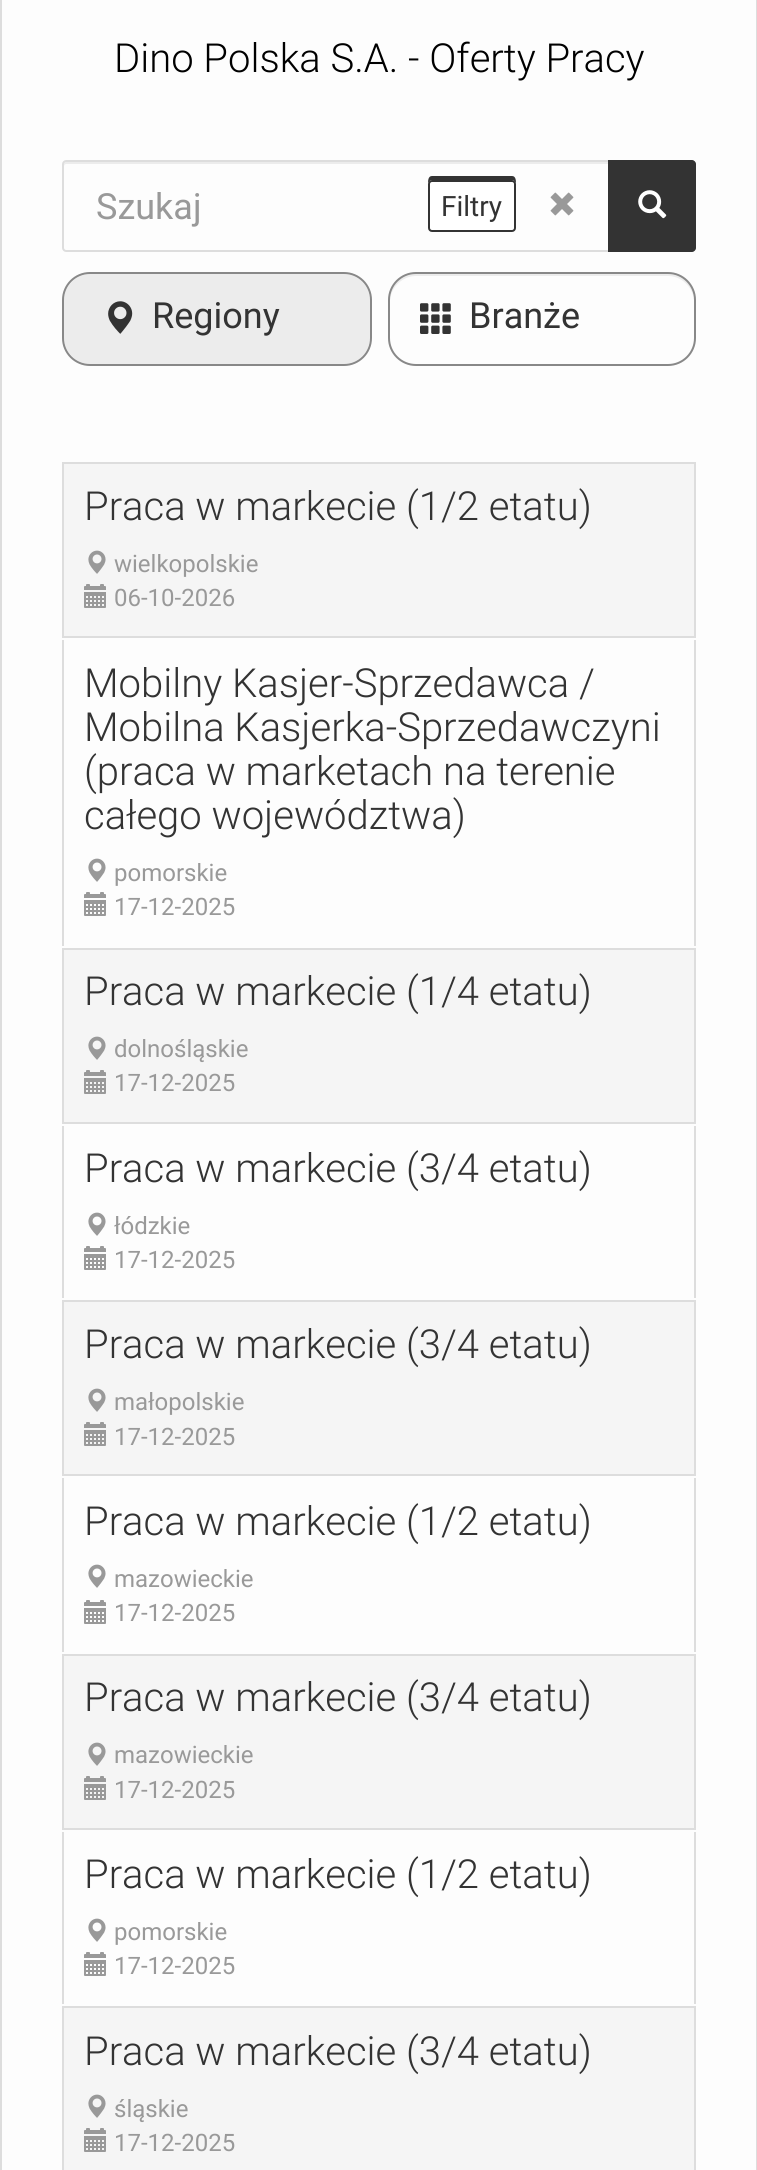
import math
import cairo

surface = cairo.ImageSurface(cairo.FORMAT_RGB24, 757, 2170)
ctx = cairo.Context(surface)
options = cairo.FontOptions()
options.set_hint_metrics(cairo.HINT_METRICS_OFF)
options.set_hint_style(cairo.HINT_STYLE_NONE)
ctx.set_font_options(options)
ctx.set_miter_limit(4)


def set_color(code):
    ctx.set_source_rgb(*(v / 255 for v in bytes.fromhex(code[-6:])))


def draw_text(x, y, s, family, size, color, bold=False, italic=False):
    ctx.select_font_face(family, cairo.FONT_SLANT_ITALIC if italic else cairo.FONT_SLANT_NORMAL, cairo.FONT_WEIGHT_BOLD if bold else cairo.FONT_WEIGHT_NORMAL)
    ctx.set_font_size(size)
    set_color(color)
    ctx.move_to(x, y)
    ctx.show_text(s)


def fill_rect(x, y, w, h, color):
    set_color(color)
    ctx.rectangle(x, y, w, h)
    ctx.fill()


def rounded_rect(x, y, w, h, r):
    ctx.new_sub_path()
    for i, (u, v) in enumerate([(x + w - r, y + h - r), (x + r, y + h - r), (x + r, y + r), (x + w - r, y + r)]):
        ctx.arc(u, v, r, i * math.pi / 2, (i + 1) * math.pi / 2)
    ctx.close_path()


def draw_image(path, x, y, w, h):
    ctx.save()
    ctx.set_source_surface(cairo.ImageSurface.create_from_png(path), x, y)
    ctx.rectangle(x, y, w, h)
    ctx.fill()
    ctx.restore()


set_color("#fdfdfd")
ctx.paint()
ctx.rectangle(1, -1, 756, 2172)
set_color("#dddddd")
ctx.stroke()
draw_text(114, 72, "Dino Polska S.A. - Oferty Pracy", "Roboto Light", 40, "#000000")
set_color("#ececec")
ctx.new_path()
ctx.move_to(66, 164)
ctx.line_to(676, 164)
ctx.curve_to(686, 164, 694, 172, 694, 182)
ctx.line_to(694, 180)
ctx.curve_to(694, 170, 686, 162, 676, 162)
ctx.line_to(66, 162)
ctx.curve_to(65, 162, 64, 163, 64, 164)
ctx.line_to(64, 166)
ctx.curve_to(64, 165, 65, 164, 66, 164)
ctx.close_path()
ctx.fill()
ctx.new_path()
ctx.move_to(66, 161)
ctx.line_to(676, 161)
ctx.curve_to(686.5, 161, 695, 169.5, 695, 180)
ctx.line_to(695, 232)
ctx.curve_to(695, 242.5, 686.5, 251, 676, 251)
ctx.line_to(66, 251)
ctx.curve_to(64.5, 251, 63, 249.5, 63, 248)
ctx.line_to(63, 164)
ctx.curve_to(63, 162.5, 64.5, 161, 66, 161)
ctx.close_path()
set_color("#dddddd")
ctx.stroke()
set_color("#333333")
ctx.new_path()
ctx.move_to(608, 160)
ctx.line_to(692, 160)
ctx.curve_to(694, 160, 696, 162, 696, 164)
ctx.line_to(696, 248)
ctx.curve_to(696, 250, 694, 252, 692, 252)
ctx.line_to(608, 252)
ctx.close_path()
ctx.fill()
draw_text(96, 219, "Szukaj", "Roboto", 36, "#999999")
draw_image("assets/img1.png", 550, 192, 24, 24)
draw_image("assets/img2.png", 638, 190, 29, 29)
set_color("#333333")
ctx.new_path()
ctx.move_to(432, 176)
ctx.curve_to(428, 176, 428, 181, 428, 184)
ctx.curve_to(428, 182, 430, 180, 432, 180)
ctx.line_to(512, 180)
ctx.curve_to(514, 180, 516, 182, 516, 184)
ctx.curve_to(516, 181, 516, 176, 512, 176)
ctx.close_path()
ctx.fill()
set_color("#ffffff")
rounded_rect(429, 181, 86, 50, 3)
ctx.fill_preserve()
set_color("#333333")
ctx.stroke()
draw_text(441, 216, "Filtry", "Roboto", 28, "#333333")
set_color("#ececec")
ctx.new_path()
ctx.move_to(90, 274)
ctx.curve_to(76, 274, 64, 286, 64, 300)
ctx.line_to(64, 338)
ctx.curve_to(64, 352, 76, 364, 90, 364)
ctx.line_to(344, 364)
ctx.curve_to(358, 364, 370, 352, 370, 338)
ctx.line_to(370, 300)
ctx.curve_to(370, 286, 358, 274, 344, 274)
ctx.close_path()
ctx.fill()
rounded_rect(63, 273, 308, 92, 27)
set_color("#888888")
ctx.stroke()
draw_image("assets/img3.png", 108, 301, 25, 33)
draw_text(152, 328, "Regiony", "Roboto", 36, "#333333")
set_color("#ececec")
ctx.new_path()
ctx.move_to(416, 276)
ctx.curve_to(402, 276, 390, 288, 390, 302)
ctx.curve_to(390, 264, 434, 274, 458, 274)
ctx.line_to(626, 274)
ctx.curve_to(650, 274, 694, 264, 694, 302)
ctx.curve_to(694, 288, 682, 276, 668, 276)
ctx.close_path()
ctx.fill()
rounded_rect(389, 273, 306, 92, 27)
set_color("#888888")
ctx.stroke()
draw_image("assets/img4.png", 420, 303, 31, 31)
draw_text(469, 328, "Branże", "Roboto", 36, "#333333")
set_color("#f5f5f5")
ctx.rectangle(63, 463, 632, 174)
ctx.fill_preserve()
set_color("#dddddd")
ctx.stroke()
draw_text(84, 520, "Praca w markecie (1/2 etatu)", "Roboto Light", 40, "#333333")
draw_image("assets/img5.png", 88, 550, 18, 24)
draw_text(114, 572, "wielkopolskie", "Roboto", 24, "#999999")
draw_image("assets/img6.png", 84, 584, 22, 24)
draw_text(114, 606, "06-10-2026", "Roboto", 24, "#999999")
fill_rect(694, 640, 2, 306, "#dddddd")
fill_rect(62, 640, 2, 306, "#dddddd")
draw_text(84, 697, "Mobilny Kasjer-Sprzedawca /", "Roboto Light", 40, "#333333")
draw_text(84, 741, "Mobilna Kasjerka-Sprzedawczyni", "Roboto Light", 40, "#333333")
draw_text(84, 785, "(praca w marketach na terenie", "Roboto Light", 40, "#333333")
draw_text(84, 829, "całego województwa)", "Roboto Light", 40, "#333333")
draw_image("assets/img7.png", 88, 858, 18, 24)
draw_text(114, 881, "pomorskie", "Roboto", 24, "#999999")
draw_image("assets/img8.png", 84, 892, 22, 24)
draw_text(114, 915, "17-12-2025", "Roboto", 24, "#999999")
set_color("#f5f5f5")
ctx.rectangle(63, 949, 632, 174)
ctx.fill_preserve()
set_color("#dddddd")
ctx.stroke()
draw_text(84, 1005, "Praca w markecie (1/4 etatu)", "Roboto Light", 40, "#333333")
draw_image("assets/img5.png", 88, 1036, 18, 24)
draw_text(114, 1057, "dolnośląskie", "Roboto", 24, "#999999")
draw_image("assets/img6.png", 84, 1070, 22, 24)
draw_text(114, 1091, "17-12-2025", "Roboto", 24, "#999999")
fill_rect(694, 1126, 2, 172, "#dddddd")
fill_rect(62, 1126, 2, 172, "#dddddd")
draw_text(84, 1182, "Praca w markecie (3/4 etatu)", "Roboto Light", 40, "#333333")
draw_image("assets/img7.png", 88, 1212, 18, 24)
draw_text(114, 1234, "łódzkie", "Roboto", 24, "#999999")
draw_image("assets/img8.png", 84, 1246, 22, 24)
draw_text(114, 1268, "17-12-2025", "Roboto", 24, "#999999")
set_color("#f5f5f5")
ctx.rectangle(63, 1301, 632, 174)
ctx.fill_preserve()
set_color("#dddddd")
ctx.stroke()
draw_text(84, 1358, "Praca w markecie (3/4 etatu)", "Roboto Light", 40, "#333333")
draw_image("assets/img5.png", 88, 1388, 18, 24)
draw_text(114, 1410, "małopolskie", "Roboto", 24, "#999999")
draw_image("assets/img6.png", 84, 1422, 22, 24)
draw_text(114, 1445, "17-12-2025", "Roboto", 24, "#999999")
fill_rect(694, 1478, 2, 174, "#dddddd")
fill_rect(62, 1478, 2, 174, "#dddddd")
draw_text(84, 1535, "Praca w markecie (1/2 etatu)", "Roboto Light", 40, "#333333")
draw_image("assets/img7.png", 88, 1564, 18, 24)
draw_text(114, 1587, "mazowieckie", "Roboto", 24, "#999999")
draw_image("assets/img8.png", 84, 1600, 22, 24)
draw_text(114, 1621, "17-12-2025", "Roboto", 24, "#999999")
set_color("#f5f5f5")
ctx.rectangle(63, 1655, 632, 174)
ctx.fill_preserve()
set_color("#dddddd")
ctx.stroke()
draw_text(84, 1711, "Praca w markecie (3/4 etatu)", "Roboto Light", 40, "#333333")
draw_image("assets/img5.png", 88, 1742, 18, 24)
draw_text(114, 1763, "mazowieckie", "Roboto", 24, "#999999")
draw_image("assets/img6.png", 84, 1776, 22, 24)
draw_text(114, 1798, "17-12-2025", "Roboto", 24, "#999999")
fill_rect(694, 1832, 2, 172, "#dddddd")
fill_rect(62, 1832, 2, 172, "#dddddd")
draw_text(84, 1888, "Praca w markecie (1/2 etatu)", "Roboto Light", 40, "#333333")
draw_image("assets/img7.png", 88, 1918, 18, 24)
draw_text(114, 1940, "pomorskie", "Roboto", 24, "#999999")
draw_image("assets/img8.png", 84, 1952, 22, 24)
draw_text(114, 1974, "17-12-2025", "Roboto", 24, "#999999")
set_color("#f5f5f5")
ctx.rectangle(63, 2007, 632, 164)
ctx.fill_preserve()
set_color("#dddddd")
ctx.stroke()
draw_text(84, 2065, "Praca w markecie (3/4 etatu)", "Roboto Light", 40, "#333333")
draw_image("assets/img5.png", 88, 2094, 18, 24)
draw_text(114, 2117, "śląskie", "Roboto", 24, "#999999")
draw_image("assets/img6.png", 84, 2128, 22, 24)
draw_text(114, 2151, "17-12-2025", "Roboto", 24, "#999999")
surface.write_to_png("output.png")
